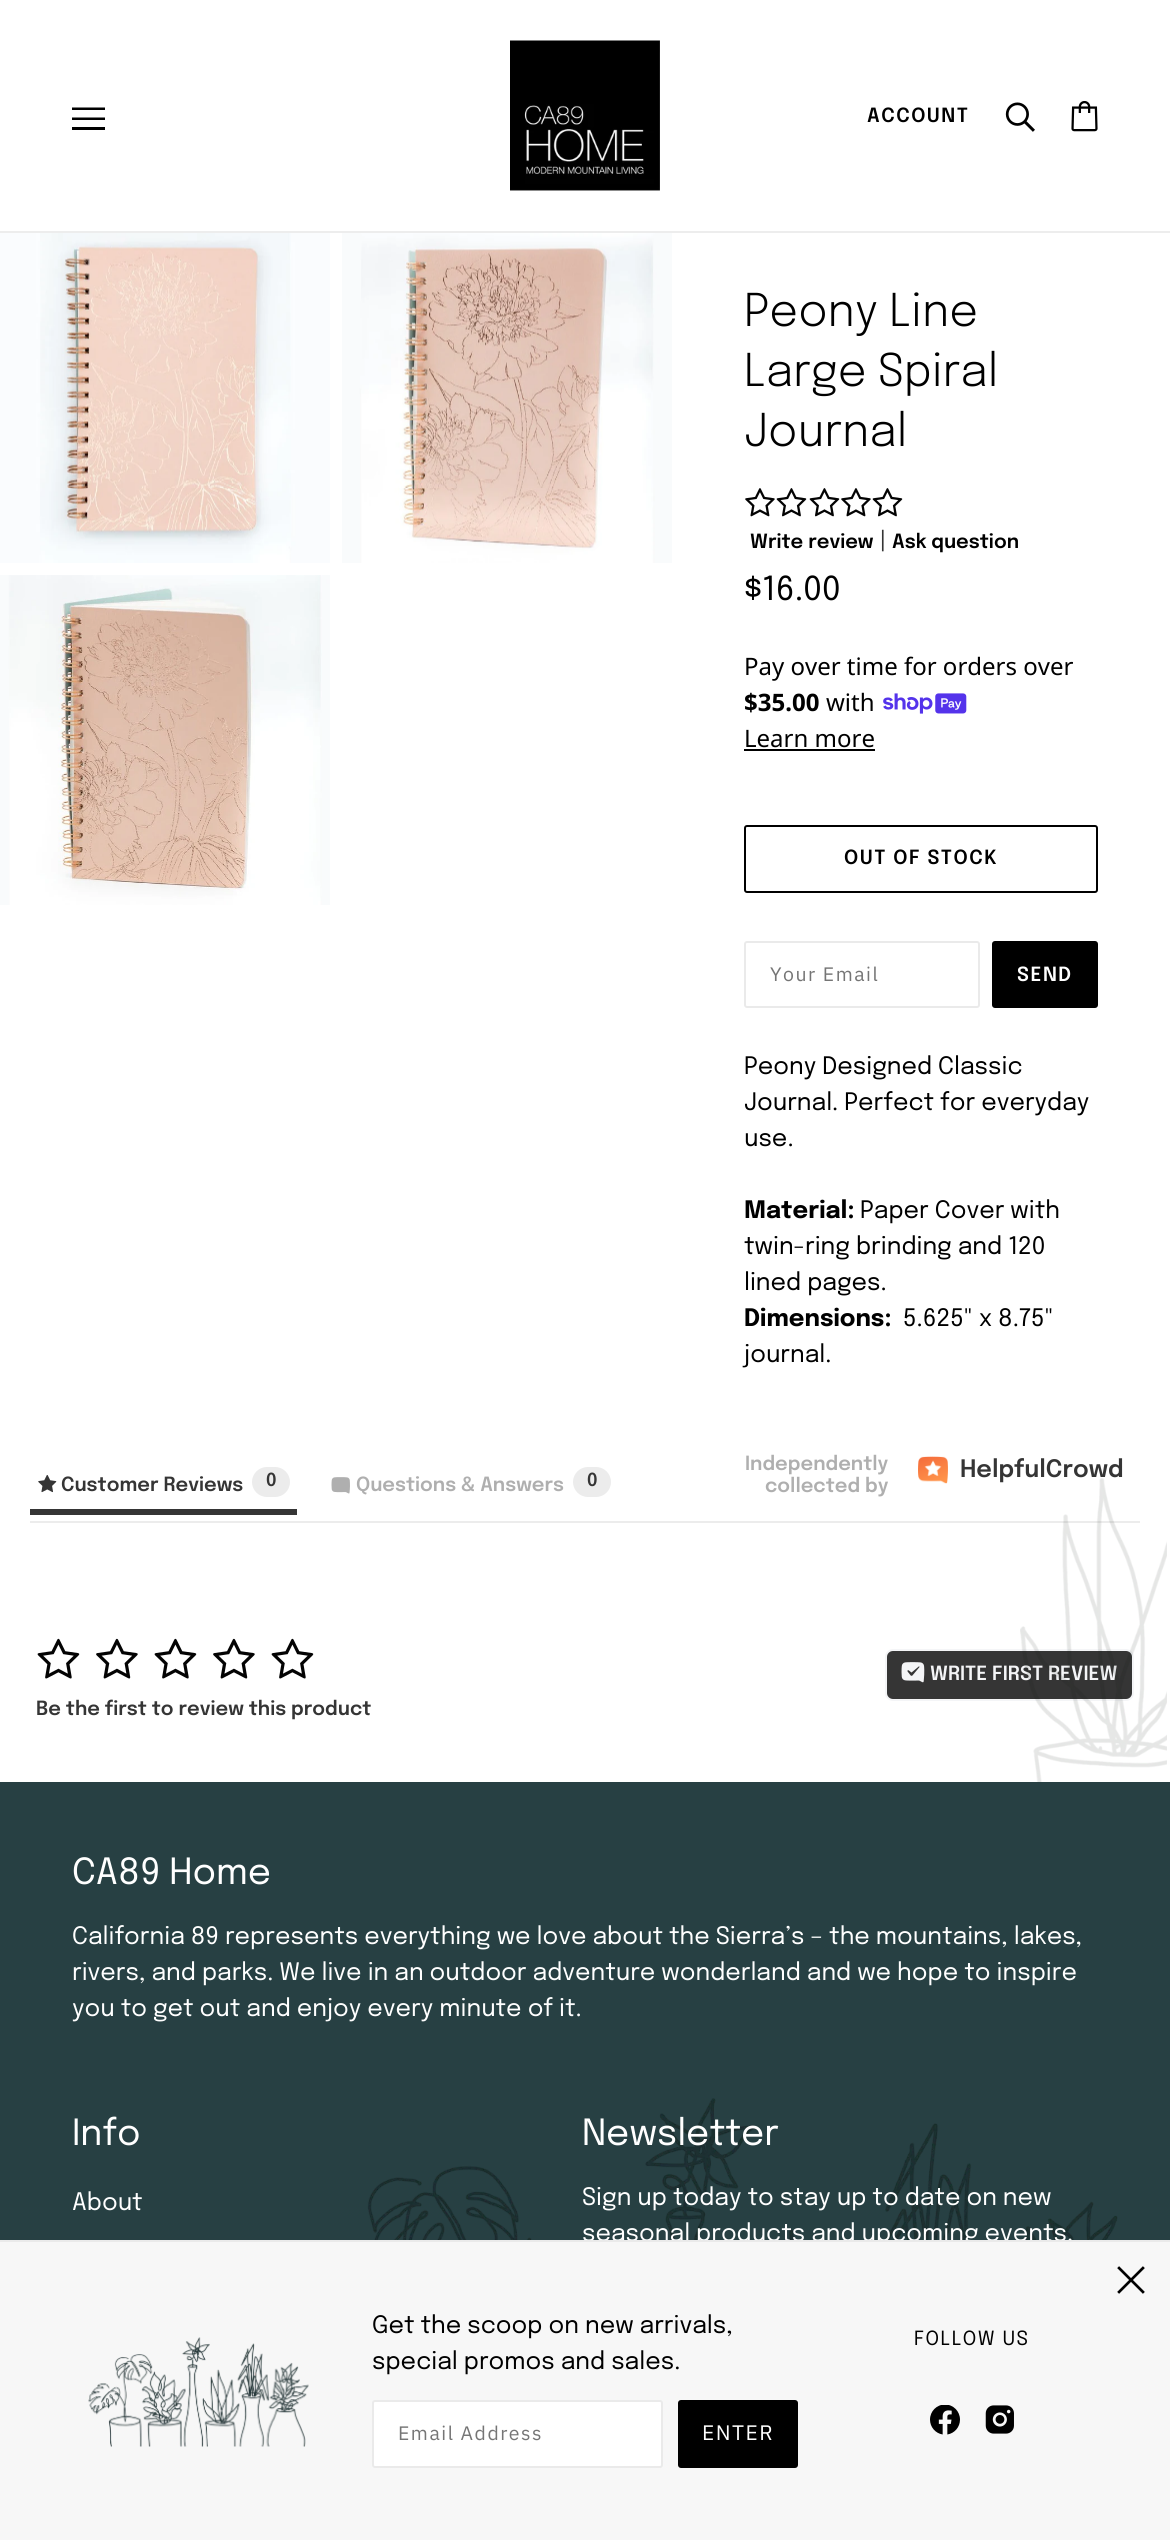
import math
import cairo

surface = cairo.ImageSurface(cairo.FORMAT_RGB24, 1170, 2540)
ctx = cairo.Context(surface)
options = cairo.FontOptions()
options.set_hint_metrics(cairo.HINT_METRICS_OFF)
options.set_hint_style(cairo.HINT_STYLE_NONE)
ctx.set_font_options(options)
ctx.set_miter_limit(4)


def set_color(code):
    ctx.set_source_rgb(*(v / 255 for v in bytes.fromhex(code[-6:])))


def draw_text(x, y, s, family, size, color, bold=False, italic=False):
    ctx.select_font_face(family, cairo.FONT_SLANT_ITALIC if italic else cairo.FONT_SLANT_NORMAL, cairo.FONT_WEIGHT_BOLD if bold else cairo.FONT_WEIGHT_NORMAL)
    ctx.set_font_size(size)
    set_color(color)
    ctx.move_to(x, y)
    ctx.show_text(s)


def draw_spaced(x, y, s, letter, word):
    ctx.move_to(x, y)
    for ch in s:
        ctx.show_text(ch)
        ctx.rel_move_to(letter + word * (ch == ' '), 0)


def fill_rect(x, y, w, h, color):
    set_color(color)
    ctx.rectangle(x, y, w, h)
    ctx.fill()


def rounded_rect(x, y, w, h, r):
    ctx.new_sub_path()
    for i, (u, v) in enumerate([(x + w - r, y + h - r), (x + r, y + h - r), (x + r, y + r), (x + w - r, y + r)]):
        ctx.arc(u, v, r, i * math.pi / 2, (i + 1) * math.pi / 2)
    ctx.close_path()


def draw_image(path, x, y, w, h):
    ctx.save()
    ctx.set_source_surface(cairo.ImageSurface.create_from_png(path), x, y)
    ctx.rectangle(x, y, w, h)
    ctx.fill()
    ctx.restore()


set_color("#ffffff")
ctx.paint()
fill_rect(0, 231, 1170, 2, "#ededed")
set_color("#000000")
ctx.new_path()
ctx.move_to(72, 110)
ctx.line_to(72, 107.5)
ctx.line_to(105, 107.5)
ctx.line_to(105, 110)
ctx.close_path()
ctx.move_to(72, 120)
ctx.line_to(72, 117.5)
ctx.line_to(105, 117.5)
ctx.line_to(105, 120)
ctx.close_path()
ctx.move_to(72, 130)
ctx.line_to(72, 127)
ctx.line_to(105, 127)
ctx.line_to(105, 130)
ctx.close_path()
ctx.fill()
draw_image("assets/img1.png", 510, 40, 150, 151)
ctx.select_font_face("Epilogue SemiBold")
ctx.set_font_size(19.5)
draw_spaced(867, 122, "ACCOUNT", 1.5, 0)
draw_image("assets/img2.png", 1005, 102, 30, 30)
draw_image("assets/img3.png", 1071, 101, 27, 31)
draw_image("assets/img4.png", 0, 233, 330, 330)
draw_image("assets/img5.png", 342, 233, 330, 330)
draw_image("assets/img6.png", 0, 575, 330, 330)
draw_text(744, 326, "Peony Line", "Epilogue Light", 45, "#000000")
draw_text(744, 386, "Large Spiral", "Epilogue Light", 45, "#000000")
draw_text(744, 446, "Journal", "Epilogue Light", 45, "#000000")
draw_image("assets/img7.png", 745, 488, 30, 29)
draw_image("assets/img8.png", 776, 488, 31, 29)
draw_image("assets/img8.png", 809, 488, 31, 29)
draw_image("assets/img7.png", 841, 488, 30, 29)
draw_image("assets/img8.png", 872, 488, 31, 29)
draw_text(750, 548, "Write review", "Epilogue SemiBold", 19.5, "#000000")
draw_text(879, 548, "|", "IBM Plex Sans", 24, "#353535")
draw_text(892, 548, "Ask question", "Epilogue SemiBold", 19.5, "#000000")
draw_text(744, 600, "$16.00", "Epilogue", 33, "#000000")
draw_text(744, 675, "Pay over time for orders over", "Noto Sans", 24, "#000000")
draw_text(744, 711, "$35.00", "Noto Sans", 24, "#000000", bold=True)
draw_text(826, 711, "with", "Noto Sans", 24, "#000000")
draw_image("assets/img9.png", 883, 693, 84, 21)
draw_text(744, 747, "Learn more", "Noto Sans", 24, "#000000")
fill_rect(744, 749, 131, 2, "#000000")
rounded_rect(745, 826, 352, 66, 2)
ctx.stroke()
ctx.select_font_face("Epilogue SemiBold")
ctx.set_font_size(19.5)
draw_spaced(844, 864, "OUT OF STOCK", 1.5, 0)
rounded_rect(745, 942, 234, 65, 2)
set_color("#eaeaea")
ctx.stroke()
ctx.select_font_face("IBM Plex Sans")
set_color("#757575")
draw_spaced(770, 981, "Your Email", 1.5, 0)
set_color("#000000")
rounded_rect(993, 942, 104, 65, 2)
ctx.fill_preserve()
ctx.stroke()
ctx.select_font_face("Epilogue SemiBold")
set_color("#ffffff")
draw_spaced(1017, 981, "SEND", 1.5, 0)
draw_text(744, 1074, "Peony Designed Classic", "Epilogue", 24, "#000000")
draw_text(744, 1110, "Journal. Perfect for everyday", "Epilogue", 24, "#000000")
draw_text(744, 1146, "use.", "Epilogue", 24, "#000000")
draw_text(744, 1218, "Material:", "Epilogue", 24, "#000000", bold=True)
draw_text(860, 1218, "Paper Cover with", "Epilogue", 24, "#000000")
draw_text(744, 1254, "twin-ring brinding and 120", "Epilogue", 24, "#000000")
draw_text(744, 1290, "lined pages.", "Epilogue", 24, "#000000")
draw_text(744, 1326, "Dimensions:", "Epilogue", 24, "#000000", bold=True)
draw_text(903, 1326, "5.625\" x 8.75\"", "Epilogue", 24, "#000000")
draw_text(744, 1362, "journal.", "Epilogue", 24, "#000000")
fill_rect(30, 1521, 1110, 2, "#ececec")
fill_rect(30, 1509, 267, 6, "#353535")
draw_image("assets/img10.png", 38, 1475, 19, 18)
draw_text(61, 1491, "Customer Reviews", "Epilogue SemiBold", 19.5, "#353535")
set_color("#ececec")
rounded_rect(252, 1467, 38, 30, 15)
ctx.fill()
draw_text(266, 1486, "0", "Epilogue SemiBold", 18, "#353535")
draw_image("assets/img11.png", 331, 1477, 19, 17)
draw_text(356, 1491, "Questions & Answers", "Epilogue SemiBold", 19.5, "#afafaf")
set_color("#ececec")
rounded_rect(573, 1467, 38, 30, 15)
ctx.fill()
draw_text(587, 1486, "0", "Epilogue SemiBold", 18, "#353535")
draw_text(745, 1470, "Independently", "Epilogue SemiBold", 19.5, "#afafaf")
draw_text(765, 1492, "collected by", "Epilogue SemiBold", 19.5, "#afafaf")
draw_image("assets/img12.png", 918, 1456, 30, 28)
draw_text(960, 1477, "HelpfulCrowd", "Epilogue SemiBold", 24, "#353535")
rounded_rect(886, 1650, 247, 50, 7)
ctx.fill_preserve()
set_color("#f4f5f7")
ctx.stroke()
draw_image("assets/img13.png", 901, 1662, 24, 21)
draw_text(930, 1680, "WRITE FIRST REVIEW", "Epilogue SemiBold", 19.5, "#f4f5f7")
draw_image("assets/img14.png", 37, 1638, 43, 41)
draw_image("assets/img15.png", 96, 1638, 42, 41)
draw_image("assets/img14.png", 154, 1638, 43, 41)
draw_image("assets/img15.png", 213, 1638, 42, 41)
draw_image("assets/img14.png", 271, 1638, 43, 41)
draw_text(36, 1715, "Be the first to review this product", "Epilogue SemiBold", 19.5, "#353535")
draw_image("assets/img16.png", 1020, 1478, 147, 304)
fill_rect(0, 1782, 1170, 458, "#274043")
draw_image("assets/img17.png", 367, 2098, 751, 142)
draw_text(72, 1884, "CA89 Home", "Epilogue", 36, "#ffffff")
draw_text(72, 1944, "California 89 represents everything we love about the Sierra’s – the mountains, lakes,", "Epilogue", 24, "#ffffff")
draw_text(72, 1980, "rivers, and parks. We live in an outdoor adventure wonderland and we hope to inspire", "Epilogue", 24, "#ffffff")
draw_text(72, 2016, "you to get out and enjoy every minute of it.", "Epilogue", 24, "#ffffff")
draw_text(72, 2145, "Info", "Epilogue", 36, "#ffffff")
draw_text(72, 2210, "About", "Epilogue", 24, "#ffffff")
draw_text(582, 2145, "Newsletter", "Epilogue", 36, "#ffffff")
draw_text(582, 2205, "Sign up today to stay up to date on new", "Epilogue", 24, "#ffffff")
draw_text(582, 2241, "seasonal products and upcoming events.", "Epilogue", 24, "#ffffff")
fill_rect(0, 2242, 1170, 298, "#f7f7f7")
fill_rect(0, 2240, 1170, 2, "#eaeaea")
draw_image("assets/img18.png", 1117, 2266, 28, 28)
draw_image("assets/img19.png", 88, 2337, 221, 110)
draw_text(372, 2333, "Get the scoop on new arrivals,", "Epilogue", 24, "#000000")
draw_text(372, 2369, "special promos and sales.", "Epilogue", 24, "#000000")
set_color("#ffffff")
rounded_rect(373, 2401, 289, 66, 2)
ctx.fill_preserve()
set_color("#eaeaea")
ctx.stroke()
ctx.select_font_face("IBM Plex Sans")
ctx.set_font_size(19.5)
set_color("#757575")
draw_spaced(398, 2440, "Email Address", 1.5, 0)
set_color("#000000")
rounded_rect(678, 2400, 120, 68, 3)
ctx.fill()
ctx.set_font_size(21)
set_color("#ffffff")
draw_spaced(702, 2440, "ENTER", 1.5, 0)
ctx.select_font_face("Epilogue")
ctx.set_font_size(19.5)
set_color("#000000")
draw_spaced(914, 2345, "FOLLOW US", 1.5, 0)
draw_image("assets/img20.png", 930, 2405, 30, 30)
draw_image("assets/img21.png", 985, 2405, 29, 29)
surface.write_to_png("output.png")
